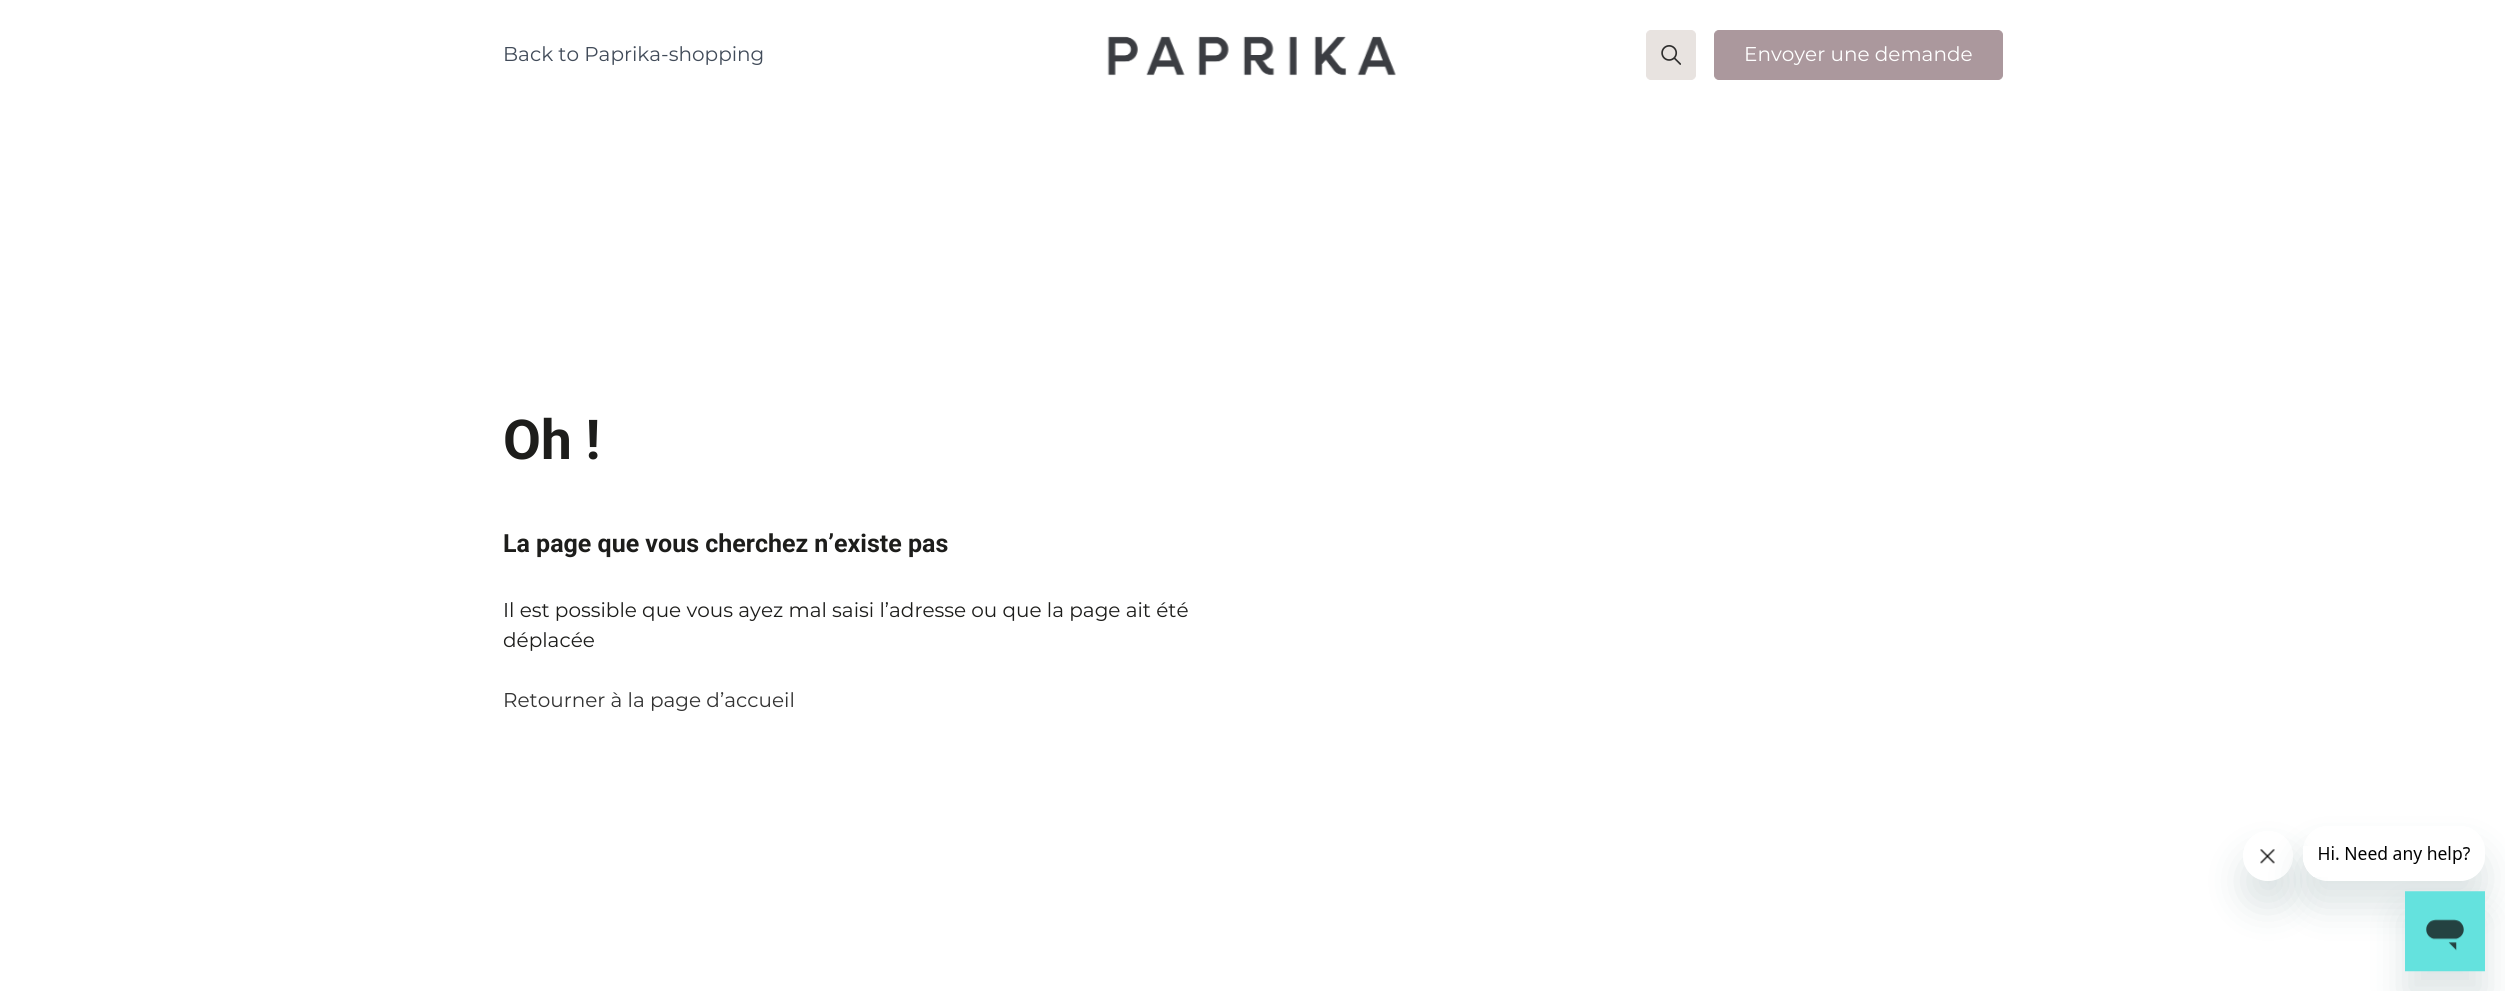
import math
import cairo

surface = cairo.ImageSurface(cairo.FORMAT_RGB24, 2505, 991)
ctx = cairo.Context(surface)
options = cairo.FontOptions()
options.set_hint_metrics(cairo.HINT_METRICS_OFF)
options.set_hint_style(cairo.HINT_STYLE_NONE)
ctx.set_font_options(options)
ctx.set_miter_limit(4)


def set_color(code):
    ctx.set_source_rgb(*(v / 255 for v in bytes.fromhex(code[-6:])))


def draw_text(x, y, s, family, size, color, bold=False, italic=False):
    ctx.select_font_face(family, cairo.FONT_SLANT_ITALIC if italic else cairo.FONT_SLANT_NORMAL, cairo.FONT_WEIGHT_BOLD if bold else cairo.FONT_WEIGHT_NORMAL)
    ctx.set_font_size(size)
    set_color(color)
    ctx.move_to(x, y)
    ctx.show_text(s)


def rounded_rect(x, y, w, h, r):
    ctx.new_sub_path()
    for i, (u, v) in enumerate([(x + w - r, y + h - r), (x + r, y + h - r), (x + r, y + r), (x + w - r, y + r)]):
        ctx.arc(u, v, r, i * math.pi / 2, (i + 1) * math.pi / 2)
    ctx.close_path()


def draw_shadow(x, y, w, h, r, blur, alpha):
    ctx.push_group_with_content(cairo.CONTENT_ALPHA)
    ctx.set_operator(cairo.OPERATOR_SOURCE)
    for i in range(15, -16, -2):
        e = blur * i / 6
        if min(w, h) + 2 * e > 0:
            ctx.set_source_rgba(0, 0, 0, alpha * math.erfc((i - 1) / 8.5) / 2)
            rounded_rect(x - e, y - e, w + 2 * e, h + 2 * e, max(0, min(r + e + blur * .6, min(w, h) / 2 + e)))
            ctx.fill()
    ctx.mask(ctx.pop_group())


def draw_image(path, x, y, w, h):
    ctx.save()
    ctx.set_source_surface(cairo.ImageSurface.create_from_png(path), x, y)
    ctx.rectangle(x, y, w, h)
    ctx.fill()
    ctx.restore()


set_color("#ffffff")
ctx.paint()
draw_text(503, 61, "Back to Paprika-shopping", "Montserrat", 20, "#414b59")
draw_image("assets/img1.png", 1107, 36, 289, 40)
set_color("#e8e3e0")
rounded_rect(1646.5, 30.5, 49, 49, 4.5)
ctx.fill_preserve()
ctx.set_line_width(1)
ctx.stroke()
draw_image("assets/img2.png", 1661, 45, 20, 20)
set_color("#ab989d")
rounded_rect(1714.5, 30.5, 288, 49, 4.5)
ctx.fill_preserve()
ctx.stroke()
draw_text(1744, 61, "Envoyer une demande", "Montserrat", 20, "#ffffff")
draw_text(503, 459, "Oh !", "Roboto", 55, "#1d1d1b", bold=True)
draw_text(503, 552, "La page que vous cherchez n’existe pas", "Roboto", 25, "#1d1d1b", bold=True)
draw_text(503, 617, "Il est possible que vous ayez mal saisi l’adresse ou que la page ait été", "Montserrat", 20, "#1d1d1b")
draw_text(503, 647, "déplacée", "Montserrat", 20, "#1d1d1b")
draw_text(503, 707, "Retourner à la page d’accueil", "Montserrat", 20, "#333333")
ctx.save()
ctx.set_fill_rule(cairo.FILL_RULE_EVEN_ODD)
ctx.new_path()
ctx.move_to(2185, 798)
ctx.line_to(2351, 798)
ctx.line_to(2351, 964)
ctx.line_to(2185, 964)
ctx.close_path()
ctx.move_to(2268, 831)
ctx.curve_to(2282, 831, 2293, 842, 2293, 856)
ctx.curve_to(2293, 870, 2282, 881, 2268, 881)
ctx.curve_to(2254, 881, 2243, 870, 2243, 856)
ctx.curve_to(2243, 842, 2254, 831, 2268, 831)
ctx.close_path()
ctx.clip()
set_color("#17494d")
draw_shadow(2243, 856, 50, 50, 25, 19, 0.15)
ctx.restore()
draw_image("assets/img4.png", 2260, 849, 15, 15)
ctx.save()
ctx.set_fill_rule(cairo.FILL_RULE_EVEN_ODD)
ctx.new_path()
ctx.move_to(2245, 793)
ctx.line_to(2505, 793)
ctx.line_to(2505, 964)
ctx.line_to(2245, 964)
ctx.close_path()
ctx.move_to(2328, 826)
ctx.line_to(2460, 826)
ctx.curve_to(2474, 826, 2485, 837, 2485, 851)
ctx.line_to(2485, 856)
ctx.curve_to(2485, 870, 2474, 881, 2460, 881)
ctx.line_to(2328, 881)
ctx.curve_to(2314, 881, 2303, 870, 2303, 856)
ctx.line_to(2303, 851)
ctx.curve_to(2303, 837, 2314, 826, 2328, 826)
ctx.close_path()
ctx.clip()
set_color("#17494d")
draw_shadow(2303, 851, 182, 55, 25, 19, 0.15)
ctx.restore()
draw_image("assets/img3.png", 2303, 846, 167, 31)
set_color("#17494d")
draw_shadow(2405, 916, 80, 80, 0, 19, 0.15)
draw_image("assets/img5.png", 2405, 891, 80, 81)
surface.write_to_png("output.png")
